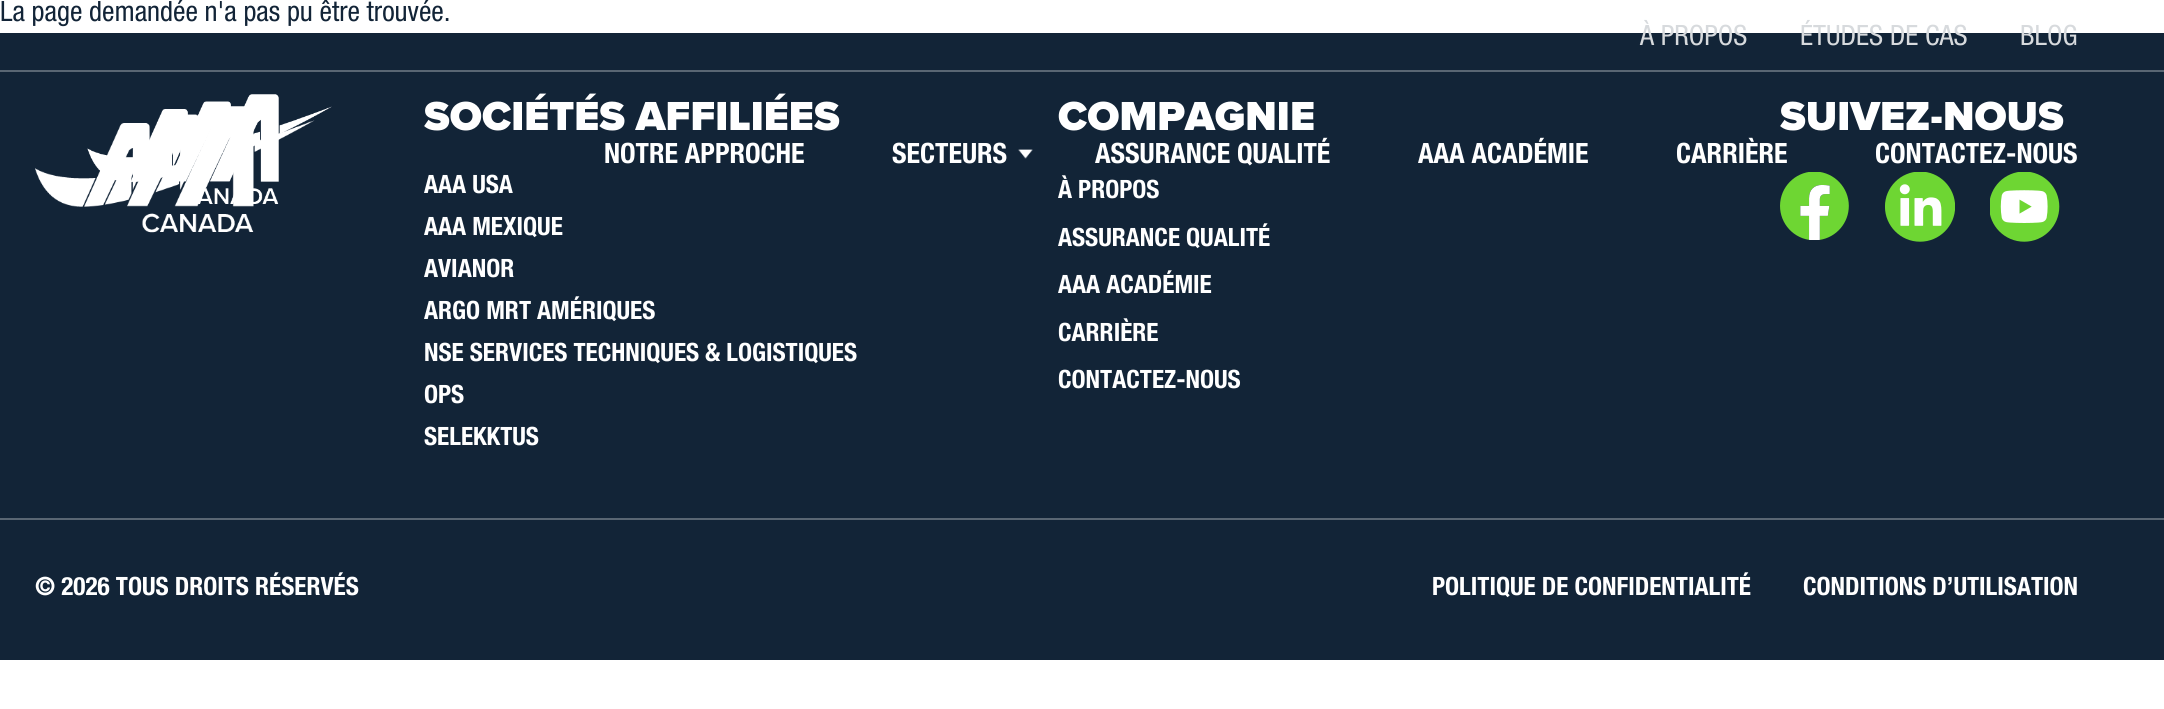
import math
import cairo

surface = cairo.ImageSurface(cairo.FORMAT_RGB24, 2164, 709)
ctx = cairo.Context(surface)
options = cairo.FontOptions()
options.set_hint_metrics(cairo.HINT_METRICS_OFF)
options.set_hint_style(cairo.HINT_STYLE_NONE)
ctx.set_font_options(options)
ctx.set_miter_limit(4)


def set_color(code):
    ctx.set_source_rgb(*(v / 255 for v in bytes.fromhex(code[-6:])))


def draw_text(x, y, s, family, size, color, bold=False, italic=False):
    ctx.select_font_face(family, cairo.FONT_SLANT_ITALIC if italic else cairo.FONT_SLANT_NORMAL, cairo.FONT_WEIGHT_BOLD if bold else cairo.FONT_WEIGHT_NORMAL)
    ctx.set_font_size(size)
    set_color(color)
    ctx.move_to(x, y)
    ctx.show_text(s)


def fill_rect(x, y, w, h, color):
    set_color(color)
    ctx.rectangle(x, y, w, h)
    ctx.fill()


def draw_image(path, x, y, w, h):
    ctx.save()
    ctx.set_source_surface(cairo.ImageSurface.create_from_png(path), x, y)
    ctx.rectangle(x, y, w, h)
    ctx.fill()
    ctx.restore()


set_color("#ffffff")
ctx.paint()
draw_text(0, 21, "La page demandée n'a pas pu être trouvée.", "Helvetica Neue", 28, "#122437")
fill_rect(0, 33, 2164, 627, "#122437")
fill_rect(0, 70, 2164, 2, "#596673")
draw_text(1640, 45, "À PROPOS", "Helvetica Neue", 28, "#d7dadd")
draw_text(1800, 45, "ÉTUDES DE CAS", "Helvetica Neue", 28, "#d7dadd")
draw_text(2020, 45, "BLOG", "Helvetica Neue", 28, "#d7dadd")
draw_image("assets/img3.png", 35, 106, 280, 127)
draw_image("assets/img1.png", 87, 94, 245, 110)
draw_text(604, 163, "NOTRE APPROCHE", "Helvetica Neue", 28, "#ffffff", bold=True)
draw_text(892, 163, "SECTEURS", "Helvetica Neue", 28, "#ffffff", bold=True)
draw_image("assets/img2.png", 1018, 149, 15, 10)
draw_text(1095, 163, "ASSURANCE QUALITÉ", "Helvetica Neue", 28, "#ffffff", bold=True)
draw_text(1418, 163, "AAA ACADÉMIE", "Helvetica Neue", 28, "#ffffff", bold=True)
draw_text(1676, 163, "CARRIÈRE", "Helvetica Neue", 28, "#ffffff", bold=True)
draw_text(1875, 163, "CONTACTEZ-NOUS", "Helvetica Neue", 28, "#ffffff", bold=True)
fill_rect(0, 518, 2164, 2, "#596673")
draw_text(424, 130, "SOCIÉTÉS AFFILIÉES", "Proxima Nova Black", 42, "#ffffff")
draw_text(424, 193, "AAA USA", "Helvetica Neue", 25.25, "#ffffff", bold=True)
draw_text(424, 235, "AAA MEXIQUE", "Helvetica Neue", 25.25, "#ffffff", bold=True)
draw_text(424, 277, "AVIANOR", "Helvetica Neue", 25.25, "#ffffff", bold=True)
draw_text(424, 319, "ARGO MRT AMÉRIQUES", "Helvetica Neue", 25.25, "#ffffff", bold=True)
draw_text(424, 361, "NSE SERVICES TECHNIQUES & LOGISTIQUES", "Helvetica Neue", 25.25, "#ffffff", bold=True)
draw_text(424, 403, "OPS", "Helvetica Neue", 25.25, "#ffffff", bold=True)
draw_text(424, 445, "SELEKKTUS", "Helvetica Neue", 25.25, "#ffffff", bold=True)
draw_text(1058, 130, "COMPAGNIE", "Proxima Nova Black", 42, "#ffffff")
draw_text(1058, 198, "À PROPOS", "Helvetica Neue", 25.25, "#ffffff", bold=True)
draw_text(1058, 246, "ASSURANCE QUALITÉ", "Helvetica Neue", 25.25, "#ffffff", bold=True)
draw_text(1058, 293, "AAA ACADÉMIE", "Helvetica Neue", 25.25, "#ffffff", bold=True)
draw_text(1058, 341, "CARRIÈRE", "Helvetica Neue", 25.25, "#ffffff", bold=True)
draw_text(1058, 388, "CONTACTEZ-NOUS", "Helvetica Neue", 25.25, "#ffffff", bold=True)
draw_text(1780, 130, "SUIVEZ-NOUS", "Proxima Nova Black", 42, "#ffffff")
draw_image("assets/img4.png", 1780, 172, 69, 68)
draw_image("assets/img5.png", 1885, 172, 70, 70)
draw_image("assets/img6.png", 1990, 172, 70, 70)
draw_text(35, 595, "© 2026 TOUS DROITS RÉSERVÉS", "Helvetica Neue", 25.25, "#ffffff", bold=True)
draw_text(1432, 595, "POLITIQUE DE CONFIDENTIALITÉ", "Helvetica Neue", 25.25, "#ffffff", bold=True)
draw_text(1803, 595, "CONDITIONS D’UTILISATION", "Helvetica Neue", 25.25, "#ffffff", bold=True)
surface.write_to_png("output.png")
